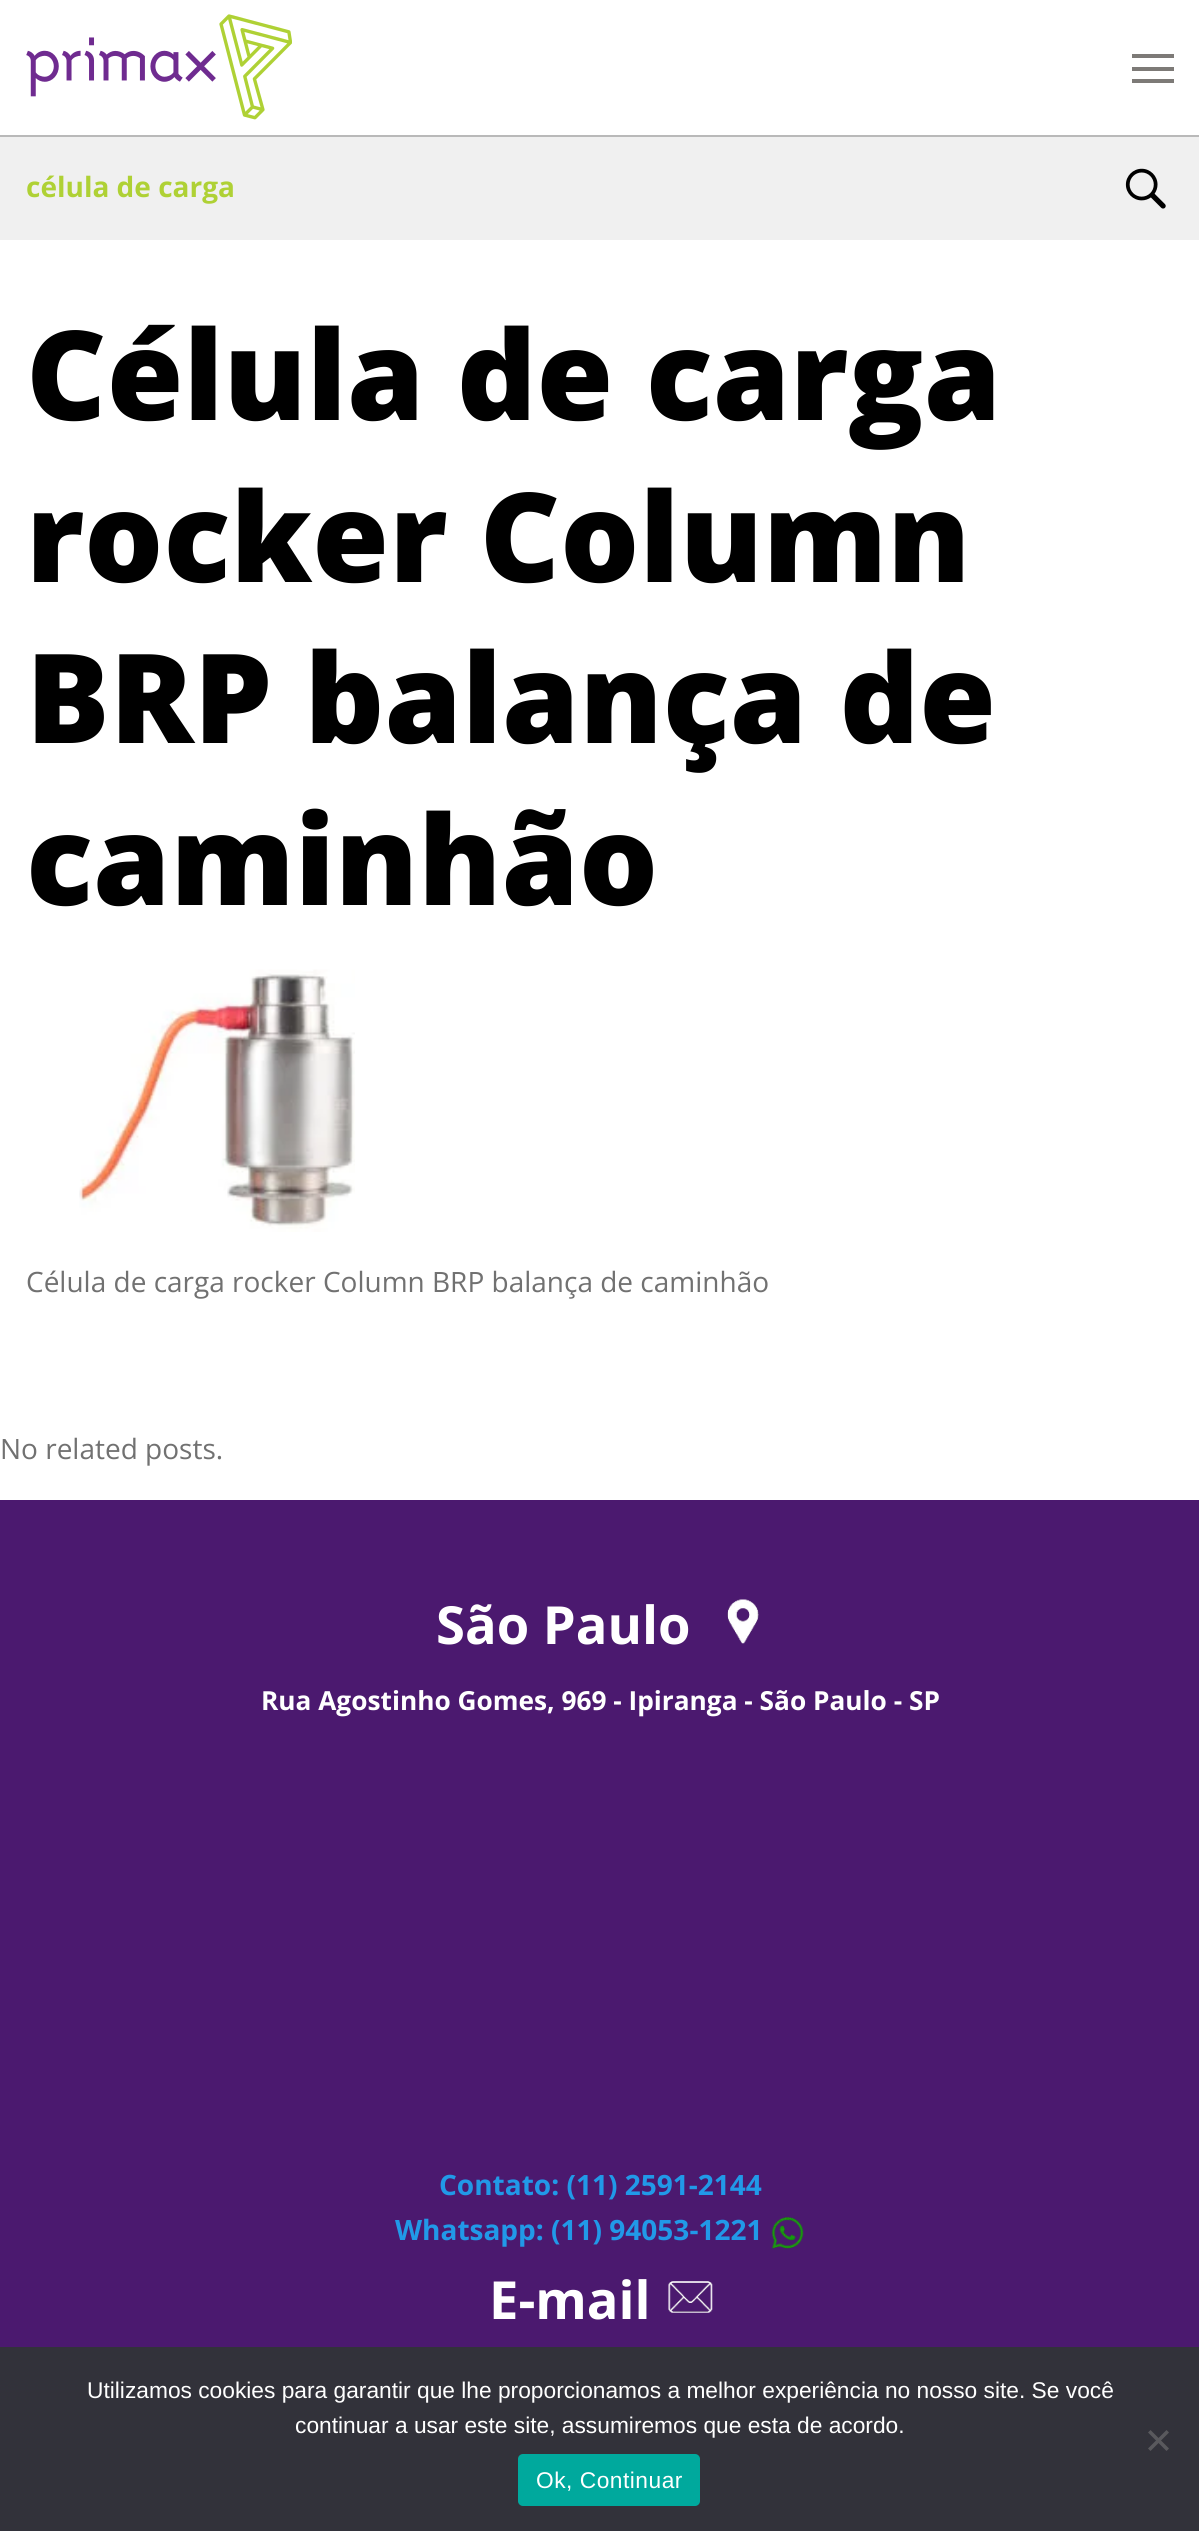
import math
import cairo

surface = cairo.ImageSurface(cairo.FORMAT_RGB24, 1199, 2531)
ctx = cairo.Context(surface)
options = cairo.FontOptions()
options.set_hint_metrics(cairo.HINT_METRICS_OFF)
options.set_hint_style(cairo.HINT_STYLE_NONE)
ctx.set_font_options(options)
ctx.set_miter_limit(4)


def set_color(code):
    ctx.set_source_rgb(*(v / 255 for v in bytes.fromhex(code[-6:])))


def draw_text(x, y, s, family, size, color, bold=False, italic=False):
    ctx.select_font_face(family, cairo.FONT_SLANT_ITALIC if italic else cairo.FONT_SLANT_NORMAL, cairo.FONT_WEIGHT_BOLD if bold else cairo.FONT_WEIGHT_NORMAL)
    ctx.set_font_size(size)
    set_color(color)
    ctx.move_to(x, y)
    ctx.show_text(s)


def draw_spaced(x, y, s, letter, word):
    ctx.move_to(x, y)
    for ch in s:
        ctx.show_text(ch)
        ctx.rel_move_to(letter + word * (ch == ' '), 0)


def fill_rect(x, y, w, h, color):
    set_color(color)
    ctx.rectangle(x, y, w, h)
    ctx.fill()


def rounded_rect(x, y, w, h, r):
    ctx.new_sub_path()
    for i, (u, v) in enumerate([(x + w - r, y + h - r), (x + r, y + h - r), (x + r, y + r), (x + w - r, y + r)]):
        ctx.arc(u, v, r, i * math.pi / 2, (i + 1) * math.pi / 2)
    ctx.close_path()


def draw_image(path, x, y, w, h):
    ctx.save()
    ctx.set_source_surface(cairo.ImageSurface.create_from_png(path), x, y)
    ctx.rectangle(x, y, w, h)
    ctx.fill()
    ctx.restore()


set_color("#ffffff")
ctx.paint()
draw_image("assets/img1.png", 26, 14, 266, 106)
fill_rect(1132, 79, 42, 4, "#7d7a77")
fill_rect(1132, 67, 42, 4, "#7d7a77")
fill_rect(1132, 54, 42, 4, "#7d7a77")
fill_rect(0, 137, 1199, 103, "#f0f0f0")
fill_rect(0, 135, 1199, 2, "#b9b9b9")
draw_text(26, 197, "célula de carga", "Open Sans", 28, "#afd135", bold=True)
draw_image("assets/img2.png", 1125, 168, 41, 41)
draw_text(26, 420, "Célula de carga", "Open Sans ExtraBold", 124.25, "#000000")
draw_text(26, 582, "rocker Column", "Open Sans ExtraBold", 124.25, "#000000")
draw_text(26, 743, "BRP balança de", "Open Sans ExtraBold", 124.25, "#000000")
draw_text(26, 905, "caminhão", "Open Sans ExtraBold", 124.25, "#000000")
draw_image("assets/img3.png", 79, 969, 276, 263)
draw_text(26, 1292, "Célula de carga rocker Column BRP balança de caminhão", "Open Sans", 28, "#717171")
draw_text(0, 1459, "No related posts.", "Open Sans", 28, "#717171")
fill_rect(0, 1500, 1199, 847, "#4b196f")
draw_text(436, 1644, "São Paulo", "Open Sans", 52.5, "#ffffff", bold=True)
draw_image("assets/img4.png", 727, 1599, 32, 45)
draw_text(261, 1710, "Rua Agostinho Gomes, 969 - Ipiranga - São Paulo - SP", "Open Sans", 26.25, "#ffffff", bold=True)
draw_text(439, 2195, "Contato: (11) 2591-2144", "Open Sans", 28, "#2199e8", bold=True)
draw_text(395, 2240, "Whatsapp: (11) 94053-1221", "Open Sans", 28, "#2199e8", bold=True)
draw_image("assets/img5.png", 771, 2217, 33, 32)
draw_text(489, 2319, "E-mail", "Open Sans", 52.5, "#ffffff", bold=True)
draw_image("assets/img6.png", 668, 2281, 45, 32)
fill_rect(0, 2347, 1199, 184, "#32323a")
draw_text(87, 2398, "Utilizamos cookies para garantir que lhe proporcionamos a melhor experiência no nosso site. Se você", "Liberation Sans", 22.75, "#ffffff")
draw_text(295, 2433, "continuar a usar este site, assumiremos que esta de acordo.", "Liberation Sans", 22.75, "#ffffff")
set_color("#59595d")
ctx.new_path()
ctx.move_to(1166.5, 2430)
ctx.line_to(1169, 2432.5)
ctx.line_to(1150.5, 2451)
ctx.line_to(1148, 2448.5)
ctx.close_path()
ctx.fill()
ctx.new_path()
ctx.move_to(1148, 2432.5)
ctx.line_to(1150.5, 2430)
ctx.line_to(1169, 2448.5)
ctx.line_to(1166.5, 2451)
ctx.close_path()
ctx.fill()
set_color("#00a99d")
rounded_rect(518, 2454, 182, 52, 5)
ctx.fill()
set_color("#ffffff")
draw_spaced(536, 2488, "Ok, Continuar", 0.5, 0)
surface.write_to_png("output.png")
